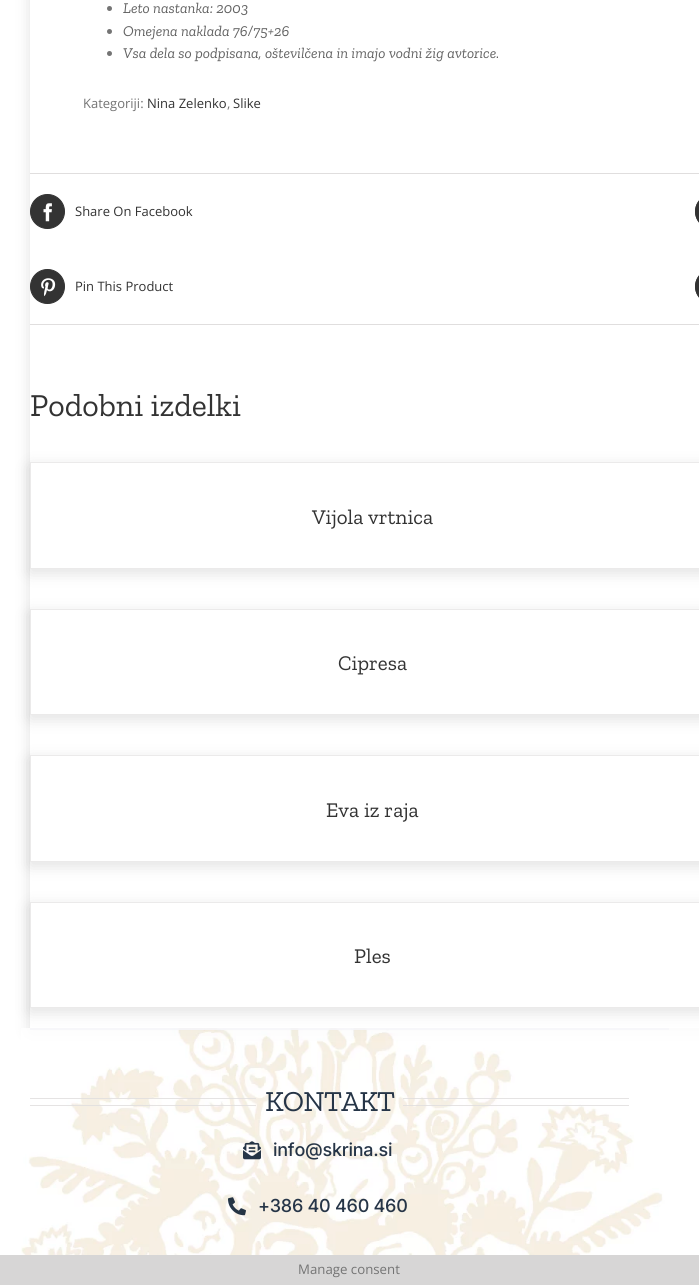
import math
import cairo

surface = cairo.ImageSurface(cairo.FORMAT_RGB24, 699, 1285)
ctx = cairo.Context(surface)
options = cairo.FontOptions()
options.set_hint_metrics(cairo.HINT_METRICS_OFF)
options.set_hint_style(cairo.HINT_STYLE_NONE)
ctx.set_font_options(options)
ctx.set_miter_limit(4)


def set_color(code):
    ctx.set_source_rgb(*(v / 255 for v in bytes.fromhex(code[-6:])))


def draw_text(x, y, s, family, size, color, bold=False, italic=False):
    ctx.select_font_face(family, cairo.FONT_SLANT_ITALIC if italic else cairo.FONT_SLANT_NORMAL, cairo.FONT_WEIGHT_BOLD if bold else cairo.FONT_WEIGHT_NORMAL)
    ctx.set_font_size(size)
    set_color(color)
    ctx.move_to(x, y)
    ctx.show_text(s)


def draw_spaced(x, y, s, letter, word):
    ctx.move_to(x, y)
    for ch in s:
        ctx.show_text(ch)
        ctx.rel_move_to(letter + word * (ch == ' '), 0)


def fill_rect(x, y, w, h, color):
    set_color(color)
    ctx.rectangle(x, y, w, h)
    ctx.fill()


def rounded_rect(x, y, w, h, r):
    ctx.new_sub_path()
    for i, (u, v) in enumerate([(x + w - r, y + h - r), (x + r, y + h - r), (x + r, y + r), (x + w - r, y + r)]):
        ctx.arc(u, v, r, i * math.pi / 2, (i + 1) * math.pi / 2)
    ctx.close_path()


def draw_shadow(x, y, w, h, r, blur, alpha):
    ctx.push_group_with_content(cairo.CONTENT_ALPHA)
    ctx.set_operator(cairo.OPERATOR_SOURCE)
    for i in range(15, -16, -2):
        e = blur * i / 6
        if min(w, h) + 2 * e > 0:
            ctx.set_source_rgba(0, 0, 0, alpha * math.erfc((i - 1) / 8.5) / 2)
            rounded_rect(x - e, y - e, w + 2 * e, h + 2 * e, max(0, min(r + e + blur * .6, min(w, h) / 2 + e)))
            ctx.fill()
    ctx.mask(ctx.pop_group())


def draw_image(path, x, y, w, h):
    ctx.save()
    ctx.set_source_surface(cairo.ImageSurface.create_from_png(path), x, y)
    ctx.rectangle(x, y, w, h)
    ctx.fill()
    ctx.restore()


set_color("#d7d6d6")
ctx.paint()
fill_rect(0, 0, 699, 1255, "#ffffff")
ctx.save()
ctx.set_fill_rule(cairo.FILL_RULE_EVEN_ODD)
ctx.new_path()
ctx.move_to(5, 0)
ctx.line_to(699, 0)
ctx.line_to(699, 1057)
ctx.line_to(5, 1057)
ctx.close_path()
ctx.move_to(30, -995)
ctx.line_to(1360, -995)
ctx.line_to(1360, 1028)
ctx.line_to(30, 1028)
ctx.close_path()
ctx.clip()
set_color("#000000")
draw_shadow(30, -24, 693, 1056, 0, 8, 0.12)
ctx.restore()
set_color("#747474")
ctx.arc(109.5, 8.5, 2.5, 0, 2 * math.pi)
ctx.fill()
draw_text(123, 13, "Leto nastanka: 2003", "Zilla Slab", 15, "#626262", italic=True)
set_color("#747474")
ctx.new_path()
ctx.arc(109.5, 31.5, 2.5, 0, 2 * math.pi)
ctx.fill()
draw_text(123, 36, "Omejena naklada 76/75+26", "Zilla Slab", 15, "#626262", italic=True)
set_color("#747474")
ctx.new_path()
ctx.arc(109.5, 53.5, 2.5, 0, 2 * math.pi)
ctx.fill()
draw_text(123, 58, "Vsa dela so podpisana, oštevilčena in imajo vodni žig avtorice.", "Zilla Slab", 15, "#626262", italic=True)
draw_text(83, 108, "Kategoriji:", "Open Sans", 13, "#747474")
draw_text(147, 108, "Nina Zelenko", "Open Sans", 13, "#333333")
draw_text(227, 108, ",", "Open Sans", 13, "#747474")
draw_text(233, 108, "Slike", "Open Sans", 13, "#333333")
fill_rect(30, 173, 669, 1, "#e0dede")
fill_rect(30, 324, 669, 1, "#e0dede")
set_color("#333333")
ctx.new_path()
ctx.arc(47.5, 211.5, 17, 0, 2 * math.pi)
ctx.fill_preserve()
ctx.set_line_width(1)
ctx.stroke()
draw_image("assets/img1.png", 43, 203, 9, 19)
draw_text(75, 216, "Share On Facebook", "Open Sans", 13, "#333333")
ctx.new_path()
ctx.move_to(712.5, 194)
ctx.line_to(699, 194)
ctx.line_to(699, 229)
ctx.line_to(712.5, 229)
ctx.curve_to(703, 229, 695, 221, 695, 211.5)
ctx.curve_to(695, 202, 703, 194, 712.5, 194)
ctx.close_path()
ctx.fill()
rounded_rect(695.5, 194.5, 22, 34, 17)
ctx.stroke()
ctx.arc(47.5, 286.5, 17, 0, 2 * math.pi)
ctx.fill_preserve()
ctx.stroke()
draw_image("assets/img2.png", 41, 278, 15, 19)
draw_text(75, 291, "Pin This Product", "Open Sans", 13, "#333333")
ctx.new_path()
ctx.move_to(712.5, 269)
ctx.line_to(699, 269)
ctx.line_to(699, 304)
ctx.line_to(712.5, 304)
ctx.curve_to(703, 304, 695, 296, 695, 286.5)
ctx.curve_to(695, 277, 703, 269, 712.5, 269)
ctx.close_path()
ctx.fill()
rounded_rect(695.5, 269.5, 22, 34, 17)
ctx.stroke()
draw_text(30, 416, "Podobni izdelki", "Zilla Slab", 32, "#333333")
ctx.save()
ctx.set_fill_rule(cairo.FILL_RULE_EVEN_ODD)
ctx.new_path()
ctx.move_to(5, 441)
ctx.line_to(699, 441)
ctx.line_to(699, 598)
ctx.line_to(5, 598)
ctx.close_path()
ctx.move_to(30, 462)
ctx.line_to(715, 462)
ctx.line_to(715, 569)
ctx.line_to(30, 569)
ctx.close_path()
ctx.clip()
set_color("#000000")
draw_shadow(30, 466, 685, 107, 0, 8, 0.12)
ctx.restore()
ctx.rectangle(30.5, 462.5, 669, 106)
set_color("#ebeaea")
ctx.stroke()
draw_text(312, 524, "Vijola vrtnica", "Zilla Slab", 21, "#333333")
ctx.save()
ctx.set_fill_rule(cairo.FILL_RULE_EVEN_ODD)
ctx.new_path()
ctx.move_to(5, 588)
ctx.line_to(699, 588)
ctx.line_to(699, 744)
ctx.line_to(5, 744)
ctx.close_path()
ctx.move_to(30, 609)
ctx.line_to(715, 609)
ctx.line_to(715, 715)
ctx.line_to(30, 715)
ctx.close_path()
ctx.clip()
set_color("#000000")
draw_shadow(30, 613, 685, 106, 0, 8, 0.12)
ctx.restore()
ctx.rectangle(30.5, 609.5, 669, 105)
set_color("#ebeaea")
ctx.stroke()
draw_text(338, 670, "Cipresa", "Zilla Slab", 21, "#333333")
ctx.save()
ctx.set_fill_rule(cairo.FILL_RULE_EVEN_ODD)
ctx.new_path()
ctx.move_to(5, 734)
ctx.line_to(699, 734)
ctx.line_to(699, 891)
ctx.line_to(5, 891)
ctx.close_path()
ctx.move_to(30, 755)
ctx.line_to(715, 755)
ctx.line_to(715, 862)
ctx.line_to(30, 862)
ctx.close_path()
ctx.clip()
set_color("#000000")
draw_shadow(30, 759, 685, 107, 0, 8, 0.12)
ctx.restore()
ctx.rectangle(30.5, 755.5, 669, 106)
set_color("#ebeaea")
ctx.stroke()
draw_text(326, 817, "Eva iz raja", "Zilla Slab", 21, "#333333")
ctx.save()
ctx.set_fill_rule(cairo.FILL_RULE_EVEN_ODD)
ctx.new_path()
ctx.move_to(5, 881)
ctx.line_to(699, 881)
ctx.line_to(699, 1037)
ctx.line_to(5, 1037)
ctx.close_path()
ctx.move_to(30, 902)
ctx.line_to(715, 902)
ctx.line_to(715, 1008)
ctx.line_to(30, 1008)
ctx.close_path()
ctx.clip()
set_color("#000000")
draw_shadow(30, 906, 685, 106, 0, 8, 0.12)
ctx.restore()
ctx.rectangle(30.5, 902.5, 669, 105)
set_color("#ebeaea")
ctx.stroke()
draw_text(354, 963, "Ples", "Zilla Slab", 21, "#333333")
draw_image("assets/img3.png", 21, 1028, 678, 227)
ctx.set_source_rgba(0.965, 0.965, 0.976, 0.85)
ctx.rectangle(30, 1028, 639, 2)
ctx.fill()
ctx.set_source_rgba(0.878, 0.871, 0.871, 0.85)
ctx.rectangle(30, 1098, 226, 1)
ctx.fill()
ctx.rectangle(30, 1105, 226, 1)
ctx.fill()
ctx.set_font_size(29)
set_color("#263547")
draw_spaced(265, 1111, "KONTAKT", -0.75, 0)
ctx.set_source_rgba(0.878, 0.871, 0.871, 0.85)
ctx.rectangle(403, 1098, 226, 1)
ctx.fill()
ctx.rectangle(403, 1105, 226, 1)
ctx.fill()
draw_image("assets/img4.png", 243, 1141, 18, 19)
ctx.select_font_face("Inter Medium")
ctx.set_font_size(18)
set_color("#263547")
draw_spaced(273, 1156, "info@skrina.si", -0.25, 0)
draw_image("assets/img5.png", 228, 1197, 18, 19)
draw_spaced(258, 1212, "+386 40 460 460", -0.25, 0)
draw_text(298, 1274, "Manage consent", "Open Sans", 13.25, "#747474")
surface.write_to_png("output.png")
